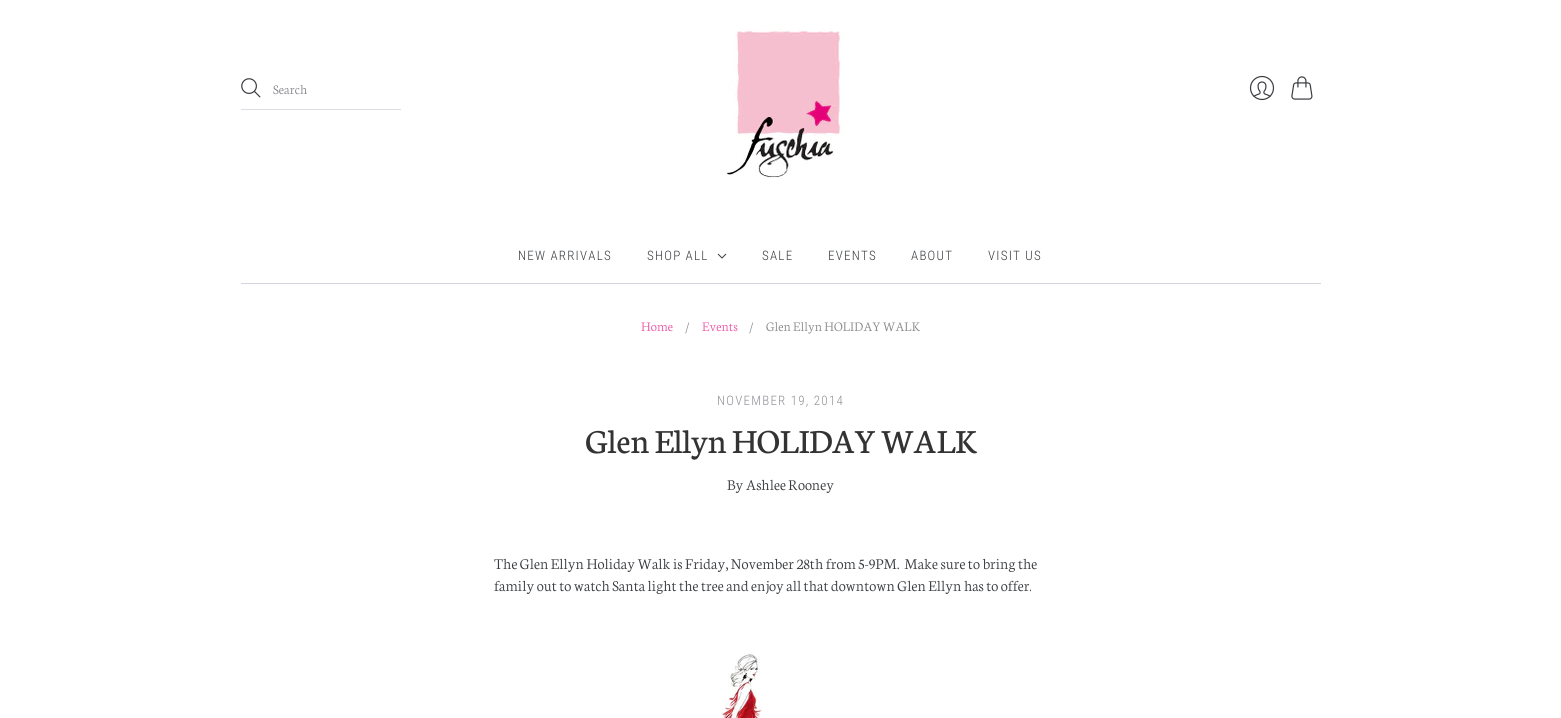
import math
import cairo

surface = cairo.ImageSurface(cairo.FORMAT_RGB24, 1561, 718)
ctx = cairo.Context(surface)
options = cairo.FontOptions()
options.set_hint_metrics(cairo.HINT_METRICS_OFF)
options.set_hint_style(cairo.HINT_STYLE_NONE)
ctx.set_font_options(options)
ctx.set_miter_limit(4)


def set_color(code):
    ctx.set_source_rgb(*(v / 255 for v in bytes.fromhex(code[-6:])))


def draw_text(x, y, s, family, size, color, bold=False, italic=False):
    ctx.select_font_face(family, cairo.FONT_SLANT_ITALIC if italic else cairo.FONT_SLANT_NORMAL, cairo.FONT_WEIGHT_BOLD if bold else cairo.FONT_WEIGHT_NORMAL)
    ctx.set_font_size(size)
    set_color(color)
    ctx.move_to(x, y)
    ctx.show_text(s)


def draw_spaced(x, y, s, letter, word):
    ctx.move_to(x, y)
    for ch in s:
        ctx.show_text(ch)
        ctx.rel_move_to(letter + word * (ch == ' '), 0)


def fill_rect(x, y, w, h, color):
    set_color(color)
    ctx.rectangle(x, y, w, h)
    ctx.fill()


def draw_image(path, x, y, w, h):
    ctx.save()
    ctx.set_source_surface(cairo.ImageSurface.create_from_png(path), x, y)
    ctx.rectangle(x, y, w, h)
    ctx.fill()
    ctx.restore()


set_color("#ffffff")
ctx.paint()
draw_image("assets/img1.png", 241, 78, 20, 20)
draw_text(273, 94, "Search", "Neuton Light", 14, "#88898c")
fill_rect(241, 109, 160, 1, "#dbdee3")
draw_image("assets/img2.png", 1249, 75, 26, 26)
draw_image("assets/img3.png", 1291, 76, 22, 24)
fill_rect(241, 283, 1080, 1, "#d2d6dc")
draw_image("assets/img4.png", 727, 29, 116, 151)
ctx.select_font_face("Roboto Condensed Light")
ctx.set_font_size(13)
set_color("#393b3f")
draw_spaced(518, 260, "NEW ARRIVALS", 1.25, 0)
draw_spaced(647, 260, "SHOP ALL", 1.25, 0)
ctx.new_path()
ctx.move_to(718, 254)
ctx.line_to(722, 258)
ctx.line_to(726, 254)
ctx.set_line_width(1)
ctx.stroke()
draw_spaced(762, 260, "SALE", 1.25, 0)
draw_spaced(828, 260, "EVENTS", 1.25, 0)
draw_spaced(911, 260, "ABOUT", 1.25, 0)
draw_spaced(988, 260, "VISIT US", 1.25, 0)
draw_text(641, 331, "Home", "Neuton Light", 14, "#ec56a8")
draw_text(685, 331, "/", "Neuton Light", 14, "#88898c")
draw_text(702, 331, "Events", "Neuton Light", 14, "#ec56a8")
draw_text(749, 331, "/", "Neuton Light", 14, "#88898c")
draw_text(766, 331, "Glen Ellyn HOLIDAY WALK", "Neuton Light", 14, "#88898c")
ctx.select_font_face("Roboto Condensed Light")
ctx.set_font_size(13)
set_color("#8d9095")
draw_spaced(717, 405, "NOVEMBER 19, 2014", 1.25, 0)
draw_text(585, 453, "Glen Ellyn HOLIDAY WALK", "Neuton", 36, "#333333")
draw_text(727, 490, "By Ashlee Rooney", "Neuton Light", 16, "#393b3f")
draw_text(494, 569, "The Glen Ellyn Holiday Walk is Friday, November 28th from 5-9PM.  Make sure to bring the", "Neuton Light", 16, "#393b3f")
draw_text(494, 591, "family out to watch Santa light the tree and enjoy all that downtown Glen Ellyn has to offer.", "Neuton Light", 16, "#393b3f")
draw_image("assets/img5.png", 721, 652, 42, 66)
surface.write_to_png("output.png")
